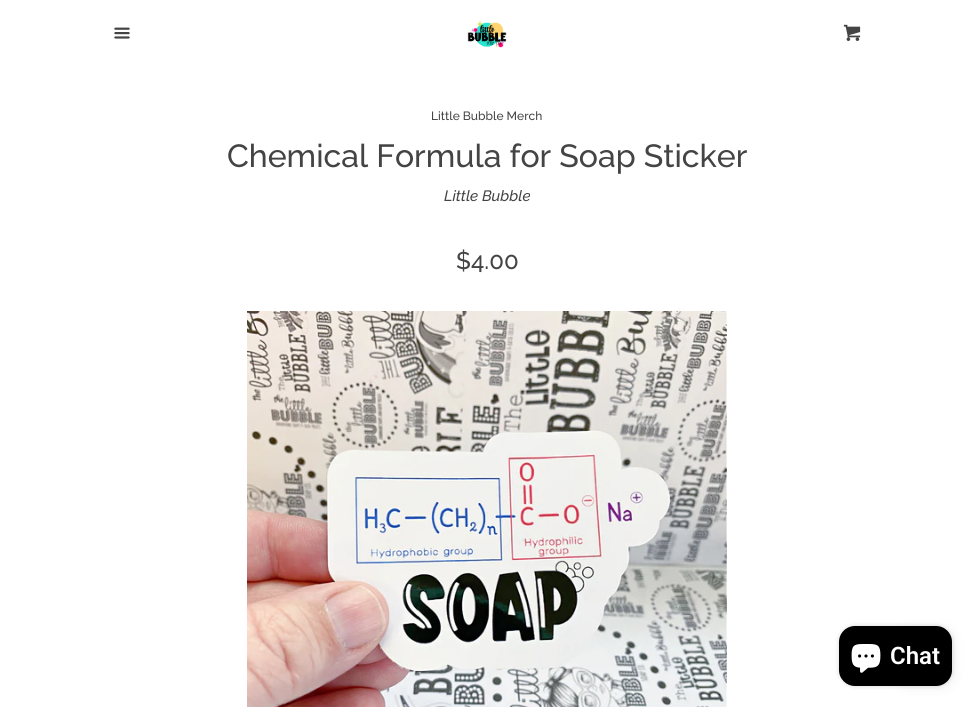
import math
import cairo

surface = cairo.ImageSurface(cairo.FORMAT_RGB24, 974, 707)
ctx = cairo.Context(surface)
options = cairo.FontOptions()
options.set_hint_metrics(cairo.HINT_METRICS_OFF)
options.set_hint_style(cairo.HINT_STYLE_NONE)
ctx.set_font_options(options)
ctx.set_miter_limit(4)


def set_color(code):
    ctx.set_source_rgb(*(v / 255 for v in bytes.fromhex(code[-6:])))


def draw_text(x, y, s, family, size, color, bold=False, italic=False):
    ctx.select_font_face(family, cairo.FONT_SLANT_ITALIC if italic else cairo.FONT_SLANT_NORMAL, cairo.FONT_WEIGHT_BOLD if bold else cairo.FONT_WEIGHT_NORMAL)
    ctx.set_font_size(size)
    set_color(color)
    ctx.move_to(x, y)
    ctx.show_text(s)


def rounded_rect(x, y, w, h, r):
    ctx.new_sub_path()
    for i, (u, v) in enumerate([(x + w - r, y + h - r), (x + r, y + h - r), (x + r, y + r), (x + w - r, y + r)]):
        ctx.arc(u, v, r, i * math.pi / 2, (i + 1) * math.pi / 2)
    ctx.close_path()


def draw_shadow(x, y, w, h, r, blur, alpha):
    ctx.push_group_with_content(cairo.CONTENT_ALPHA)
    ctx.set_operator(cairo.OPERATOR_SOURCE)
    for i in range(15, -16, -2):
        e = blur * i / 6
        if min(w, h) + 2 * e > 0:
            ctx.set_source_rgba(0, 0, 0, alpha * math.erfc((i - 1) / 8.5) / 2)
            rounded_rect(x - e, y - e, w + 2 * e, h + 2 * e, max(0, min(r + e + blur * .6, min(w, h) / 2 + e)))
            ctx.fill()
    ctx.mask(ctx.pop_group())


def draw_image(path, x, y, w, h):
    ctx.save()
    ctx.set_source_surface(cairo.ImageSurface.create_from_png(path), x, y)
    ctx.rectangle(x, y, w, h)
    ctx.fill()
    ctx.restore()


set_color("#ffffff")
ctx.paint()
draw_image("assets/img1.png", 114, 27, 16, 12)
draw_image("assets/img2.png", 467, 20, 40, 28)
draw_image("assets/img3.png", 843, 24, 18, 17)
draw_text(431, 120, "Little Bubble Merch", "Raleway Medium", 12, "#444444")
draw_text(227, 167, "Chemical Formula for Soap Sticker", "Raleway Medium", 32, "#444444")
draw_text(444, 201, "Little Bubble", "Raleway Medium", 15, "#444444", italic=True)
draw_text(456, 269, "$4.00", "Raleway Medium", 24, "#444444")
draw_image("assets/img4.png", 247, 311, 480, 396)
set_color("#000000")
draw_shadow(900, 633, 50, 50, 6, 7.5, 0.1)
draw_shadow(839, 626, 113, 60, 16, 2.5, 0.15)
set_color("#000000")
rounded_rect(839, 626, 113, 60, 16)
ctx.fill()
draw_image("assets/img5.png", 851, 644, 30, 29)
draw_text(890, 664, "Chat", "Roboto SemiBold", 24, "#ffffff")
surface.write_to_png("output.png")
